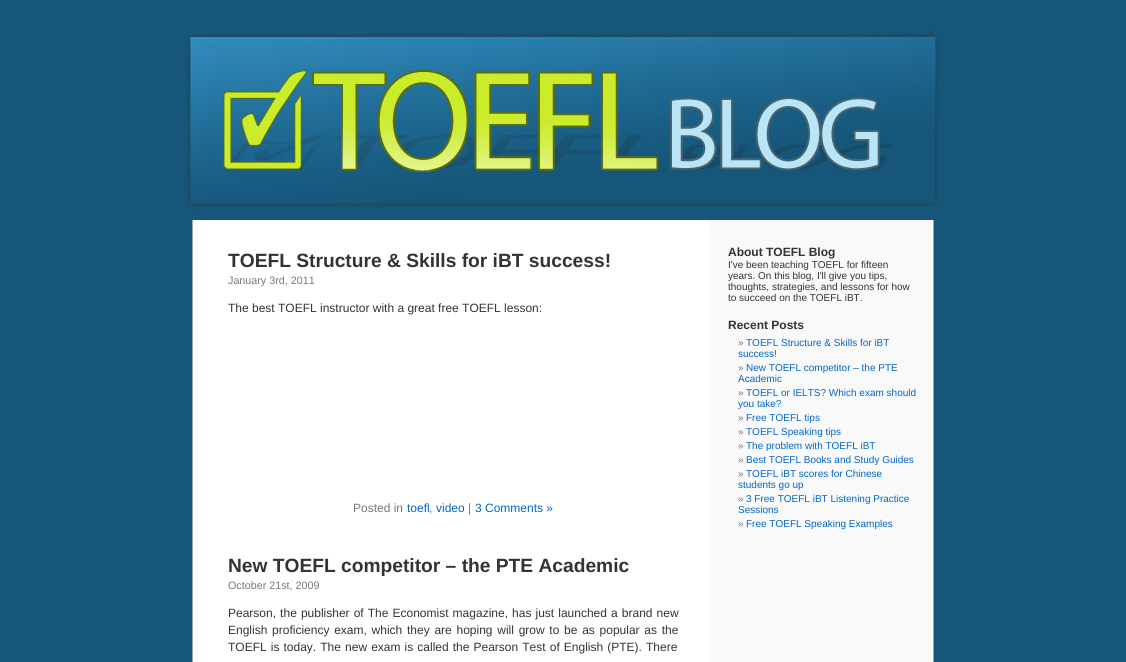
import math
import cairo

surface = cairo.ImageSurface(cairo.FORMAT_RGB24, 1126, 662)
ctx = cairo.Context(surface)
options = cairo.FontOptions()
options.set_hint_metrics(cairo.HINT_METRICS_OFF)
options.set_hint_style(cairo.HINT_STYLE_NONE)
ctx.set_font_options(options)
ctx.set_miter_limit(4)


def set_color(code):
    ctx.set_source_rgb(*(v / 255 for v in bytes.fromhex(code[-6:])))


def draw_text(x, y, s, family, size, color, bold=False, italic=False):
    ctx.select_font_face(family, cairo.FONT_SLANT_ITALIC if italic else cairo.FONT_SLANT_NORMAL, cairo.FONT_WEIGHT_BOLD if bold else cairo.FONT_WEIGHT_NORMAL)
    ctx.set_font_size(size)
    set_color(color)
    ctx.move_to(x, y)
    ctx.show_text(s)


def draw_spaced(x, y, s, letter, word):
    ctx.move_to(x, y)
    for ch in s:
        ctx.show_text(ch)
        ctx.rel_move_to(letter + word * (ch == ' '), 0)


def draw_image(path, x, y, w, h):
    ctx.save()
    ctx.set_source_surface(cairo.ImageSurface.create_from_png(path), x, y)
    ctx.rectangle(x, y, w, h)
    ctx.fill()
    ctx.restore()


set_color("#16567a")
ctx.paint()
draw_image("assets/img1.png", 192, 220, 742, 442)
draw_image("assets/img2.png", 184, 20, 758, 200)
draw_text(228, 267, "TOEFL Structure & Skills for iBT success!", "Liberation Sans", 19.2, "#333333", bold=True)
draw_text(228, 284, "January 3rd, 2011", "Liberation Sans", 10.75, "#777777")
draw_text(228, 312, "The best TOEFL instructor with a great free TOEFL lesson:", "Liberation Sans", 12, "#333333")
draw_text(353, 512, "Posted in", "Liberation Sans", 12, "#777777")
draw_text(407, 512, "toefl", "Liberation Sans", 12, "#0066cc")
draw_text(429, 512, ",", "Liberation Sans", 12, "#777777")
draw_text(436, 512, "video", "Liberation Sans", 12, "#0066cc")
draw_text(468, 512, "|", "Liberation Sans", 12, "#777777")
draw_text(475, 512, "3 Comments »", "Liberation Sans", 12, "#0066cc")
draw_text(228, 572, "New TOEFL competitor – the PTE Academic", "Liberation Sans", 19.2, "#333333", bold=True)
draw_text(228, 589, "October 21st, 2009", "Liberation Sans", 10.75, "#777777")
ctx.set_font_size(12)
set_color("#333333")
draw_spaced(228, 617, "Pearson, the publisher of The Economist magazine, has just launched a brand new", 0, 0.75)
draw_spaced(228, 634, "English proficiency exam, which they are hoping will grow to be as popular as the", 0, 1.4)
draw_spaced(228, 651, "TOEFL is today. The new exam is called the Pearson Test of English (PTE). There", 0, 0.75)
draw_text(728, 256, "About TOEFL Blog", "Liberation Sans", 12, "#333333", bold=True)
draw_text(728, 268, "I've been teaching TOEFL for fifteen", "Liberation Sans", 10, "#333333")
draw_text(728, 279, "years. On this blog, I'll give you tips,", "Liberation Sans", 10, "#333333")
draw_text(728, 290, "thoughts, strategies, and lessons for how", "Liberation Sans", 10, "#333333")
draw_text(728, 301, "to succeed on the TOEFL iBT.", "Liberation Sans", 10, "#333333")
draw_text(728, 329, "Recent Posts", "Liberation Sans", 12, "#333333", bold=True)
draw_text(738, 346, "»", "Liberation Sans", 10, "#777777")
draw_text(746, 346, "TOEFL Structure & Skills for iBT", "Liberation Sans", 10, "#0066cc")
draw_text(738, 357, "success!", "Liberation Sans", 10, "#0066cc")
draw_text(738, 371, "»", "Liberation Sans", 10, "#777777")
draw_text(746, 371, "New TOEFL competitor – the PTE", "Liberation Sans", 10, "#0066cc")
draw_text(738, 382, "Academic", "Liberation Sans", 10, "#0066cc")
draw_text(738, 396, "»", "Liberation Sans", 10, "#777777")
draw_text(746, 396, "TOEFL or IELTS? Which exam should", "Liberation Sans", 10, "#0066cc")
draw_text(738, 407, "you take?", "Liberation Sans", 10, "#0066cc")
draw_text(738, 421, "»", "Liberation Sans", 10, "#777777")
draw_text(746, 421, "Free TOEFL tips", "Liberation Sans", 10, "#0066cc")
draw_text(738, 435, "»", "Liberation Sans", 10, "#777777")
draw_text(746, 435, "TOEFL Speaking tips", "Liberation Sans", 10, "#0066cc")
draw_text(738, 449, "»", "Liberation Sans", 10, "#777777")
draw_text(746, 449, "The problem with TOEFL iBT", "Liberation Sans", 10, "#0066cc")
draw_text(738, 463, "»", "Liberation Sans", 10, "#777777")
draw_text(746, 463, "Best TOEFL Books and Study Guides", "Liberation Sans", 10, "#0066cc")
draw_text(738, 477, "»", "Liberation Sans", 10, "#777777")
draw_text(746, 477, "TOEFL iBT scores for Chinese", "Liberation Sans", 10, "#0066cc")
draw_text(738, 488, "students go up", "Liberation Sans", 10, "#0066cc")
draw_text(738, 502, "»", "Liberation Sans", 10, "#777777")
draw_text(746, 502, "3 Free TOEFL iBT Listening Practice", "Liberation Sans", 10, "#0066cc")
draw_text(738, 513, "Sessions", "Liberation Sans", 10, "#0066cc")
draw_text(738, 527, "»", "Liberation Sans", 10, "#777777")
draw_text(746, 527, "Free TOEFL Speaking Examples", "Liberation Sans", 10, "#0066cc")
surface.write_to_png("output.png")
